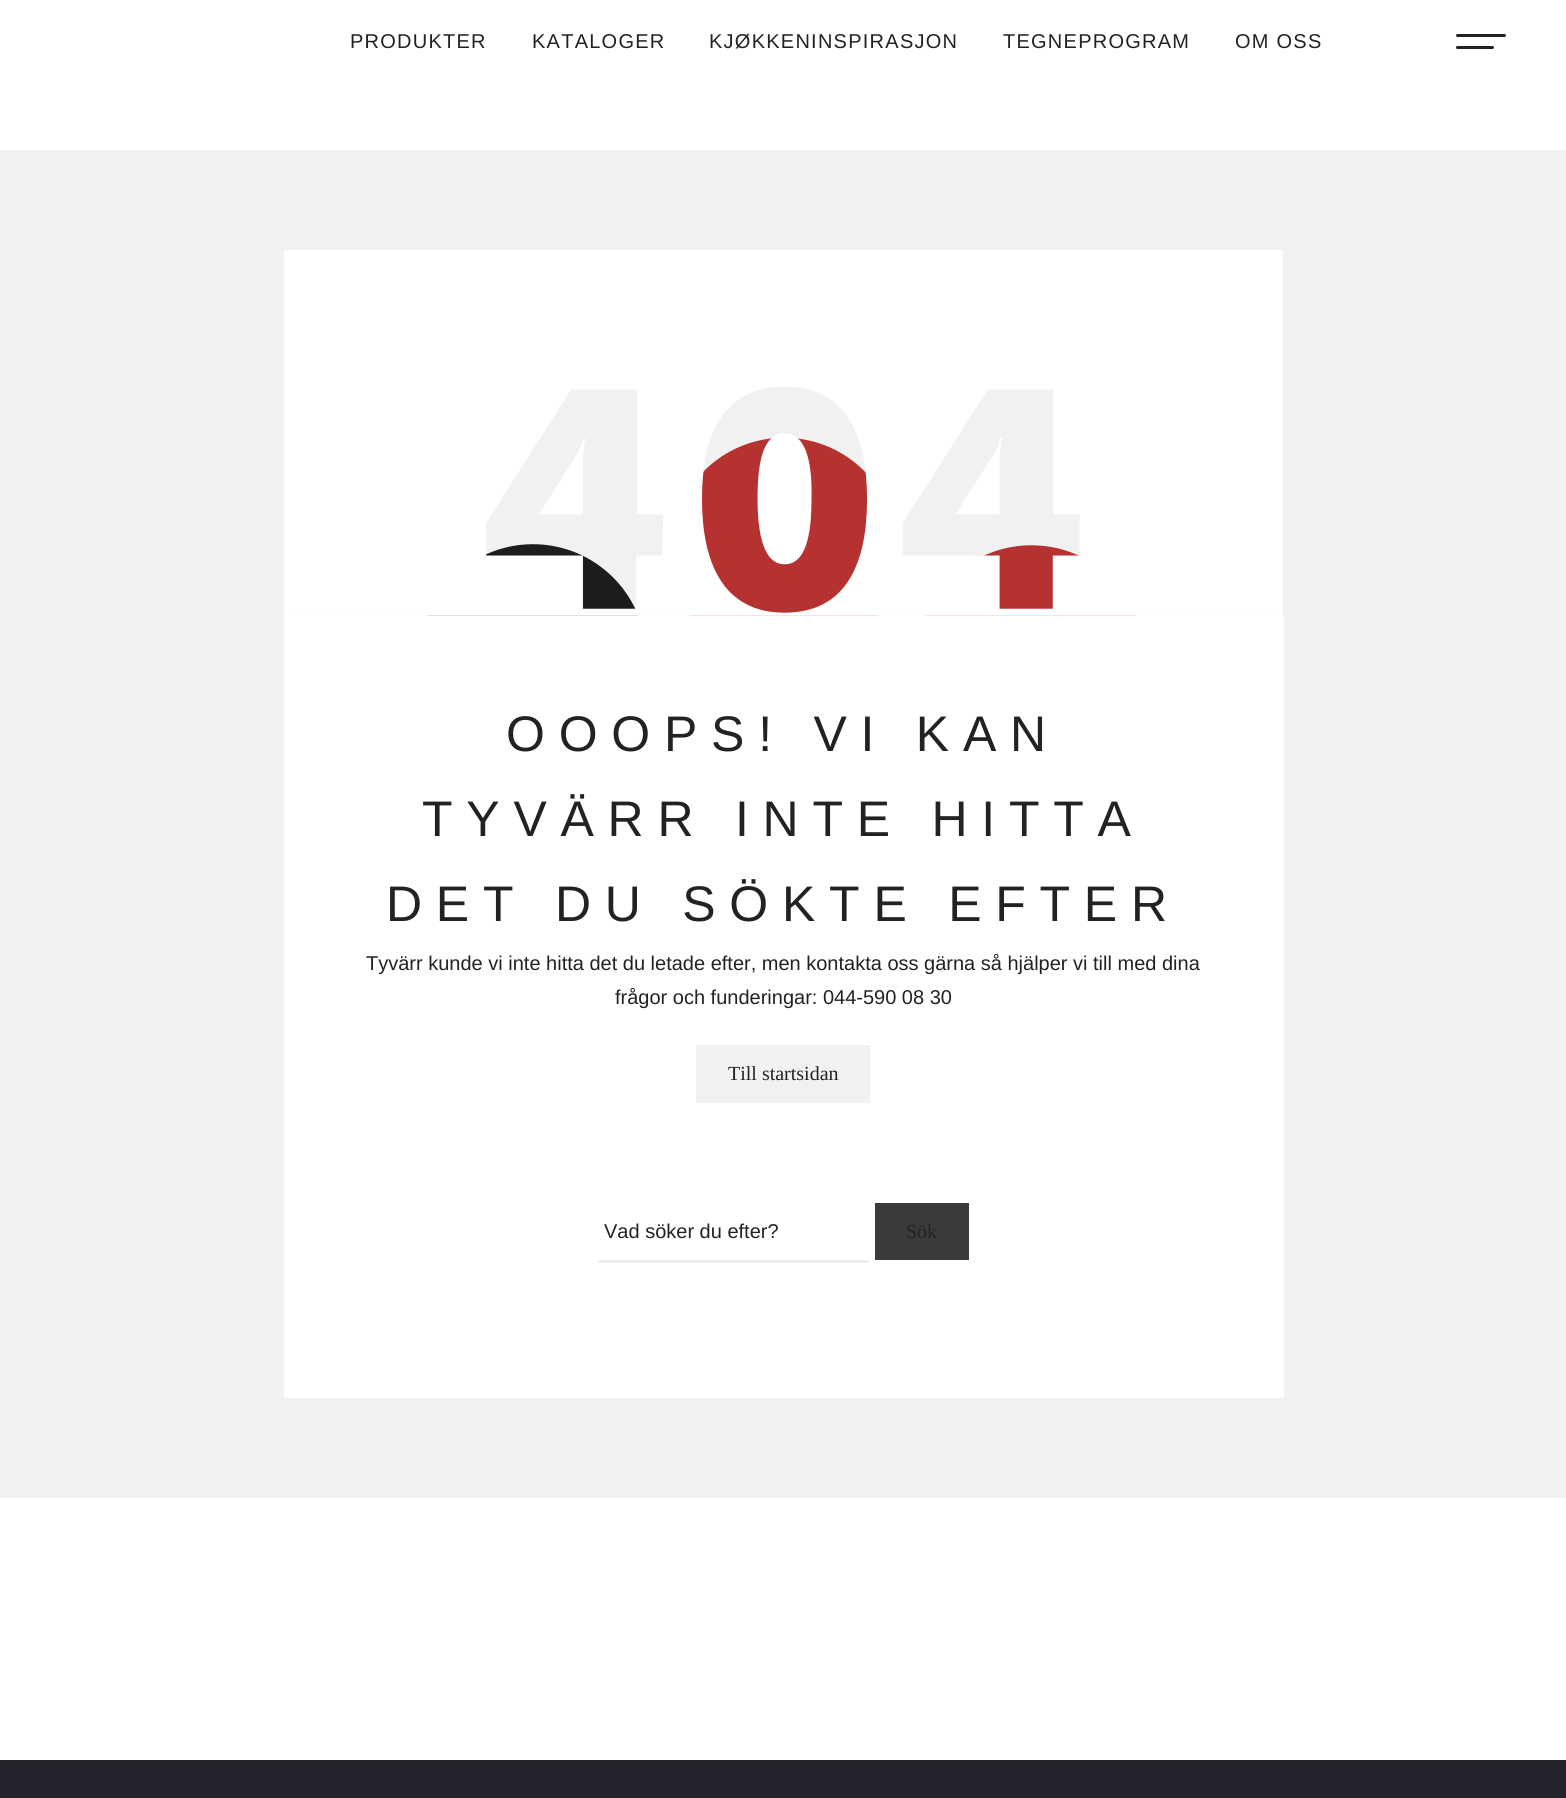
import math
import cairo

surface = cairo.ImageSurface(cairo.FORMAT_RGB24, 1566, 1798)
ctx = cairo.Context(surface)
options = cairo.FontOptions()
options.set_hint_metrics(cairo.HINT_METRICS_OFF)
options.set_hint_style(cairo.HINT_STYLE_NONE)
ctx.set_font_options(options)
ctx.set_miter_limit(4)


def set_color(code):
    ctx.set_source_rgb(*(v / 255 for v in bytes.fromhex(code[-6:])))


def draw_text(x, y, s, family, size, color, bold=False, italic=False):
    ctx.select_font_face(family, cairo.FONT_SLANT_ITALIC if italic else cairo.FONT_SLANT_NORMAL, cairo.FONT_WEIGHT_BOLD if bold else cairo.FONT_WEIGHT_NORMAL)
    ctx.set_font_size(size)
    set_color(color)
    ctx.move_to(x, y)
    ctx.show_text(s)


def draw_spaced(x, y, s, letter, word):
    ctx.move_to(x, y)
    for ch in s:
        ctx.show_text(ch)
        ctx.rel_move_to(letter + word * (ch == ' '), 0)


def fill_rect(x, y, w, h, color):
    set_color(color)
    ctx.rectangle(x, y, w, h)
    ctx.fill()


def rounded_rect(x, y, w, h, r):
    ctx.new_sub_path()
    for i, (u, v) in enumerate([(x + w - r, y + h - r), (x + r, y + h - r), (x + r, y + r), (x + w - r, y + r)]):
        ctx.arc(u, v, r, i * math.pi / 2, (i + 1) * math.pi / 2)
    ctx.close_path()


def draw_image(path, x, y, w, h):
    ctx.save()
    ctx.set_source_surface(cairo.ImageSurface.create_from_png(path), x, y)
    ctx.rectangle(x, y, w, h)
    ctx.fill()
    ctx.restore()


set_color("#ffffff")
ctx.paint()
ctx.select_font_face("Liberation Sans")
ctx.set_font_size(20)
set_color("#222222")
draw_spaced(350, 48, "PRODUKTER", 1.25, 0)
draw_spaced(532, 48, "KATALOGER", 1.25, 0)
draw_spaced(709, 48, "KJØKKENINSPIRASJON", 1.25, 0)
draw_spaced(1003, 48, "TEGNEPROGRAM", 1.25, 0)
draw_spaced(1235, 48, "OM OSS", 1.25, 0)
rounded_rect(1456, 46, 38, 3, 1.5)
ctx.fill()
rounded_rect(1456, 34, 50, 3, 1.5)
ctx.fill()
fill_rect(0, 150, 1566, 1348, "#f1f1f1")
draw_image("assets/img1.png", 427, 438, 710, 178)
draw_image("assets/img2.png", 284, 250, 999, 366)
fill_rect(284, 616, 1000, 782, "#ffffff")
ctx.set_font_size(50)
set_color("#222222")
draw_spaced(506, 751, "OOOPS! VI KAN", 13.75, 0)
draw_spaced(422, 836, "TYVÄRR INTE HITTA", 13.75, 0)
draw_spaced(386, 921, "DET DU SÖKTE EFTER", 13.75, 0)
draw_text(366, 970, "Tyvärr kunde vi inte hitta det du letade efter, men kontakta oss gärna så hjälper vi till med dina", "Liberation Sans", 20, "#222222")
draw_text(615, 1004, "frågor och funderingar: 044-590 08 30", "Liberation Sans", 20, "#222222")
fill_rect(696, 1045, 174, 58, "#f1f1f1")
draw_text(728, 1080, "Till startsidan", "Liberation Serif", 20, "#222222")
set_color("#eeeeee")
ctx.new_path()
ctx.move_to(598, 1260)
ctx.line_to(598, 1263)
ctx.line_to(869, 1263)
ctx.line_to(869, 1205)
ctx.line_to(869, 1260)
ctx.close_path()
ctx.fill()
draw_text(604, 1238, "Vad söker du efter?", "Liberation Sans", 20, "#222222")
fill_rect(875, 1203, 94, 57, "#3a3a3a")
draw_text(906, 1238, "Sök", "Liberation Serif", 20, "#222222")
fill_rect(0, 1760, 1566, 38, "#23232c")
surface.write_to_png("output.png")
